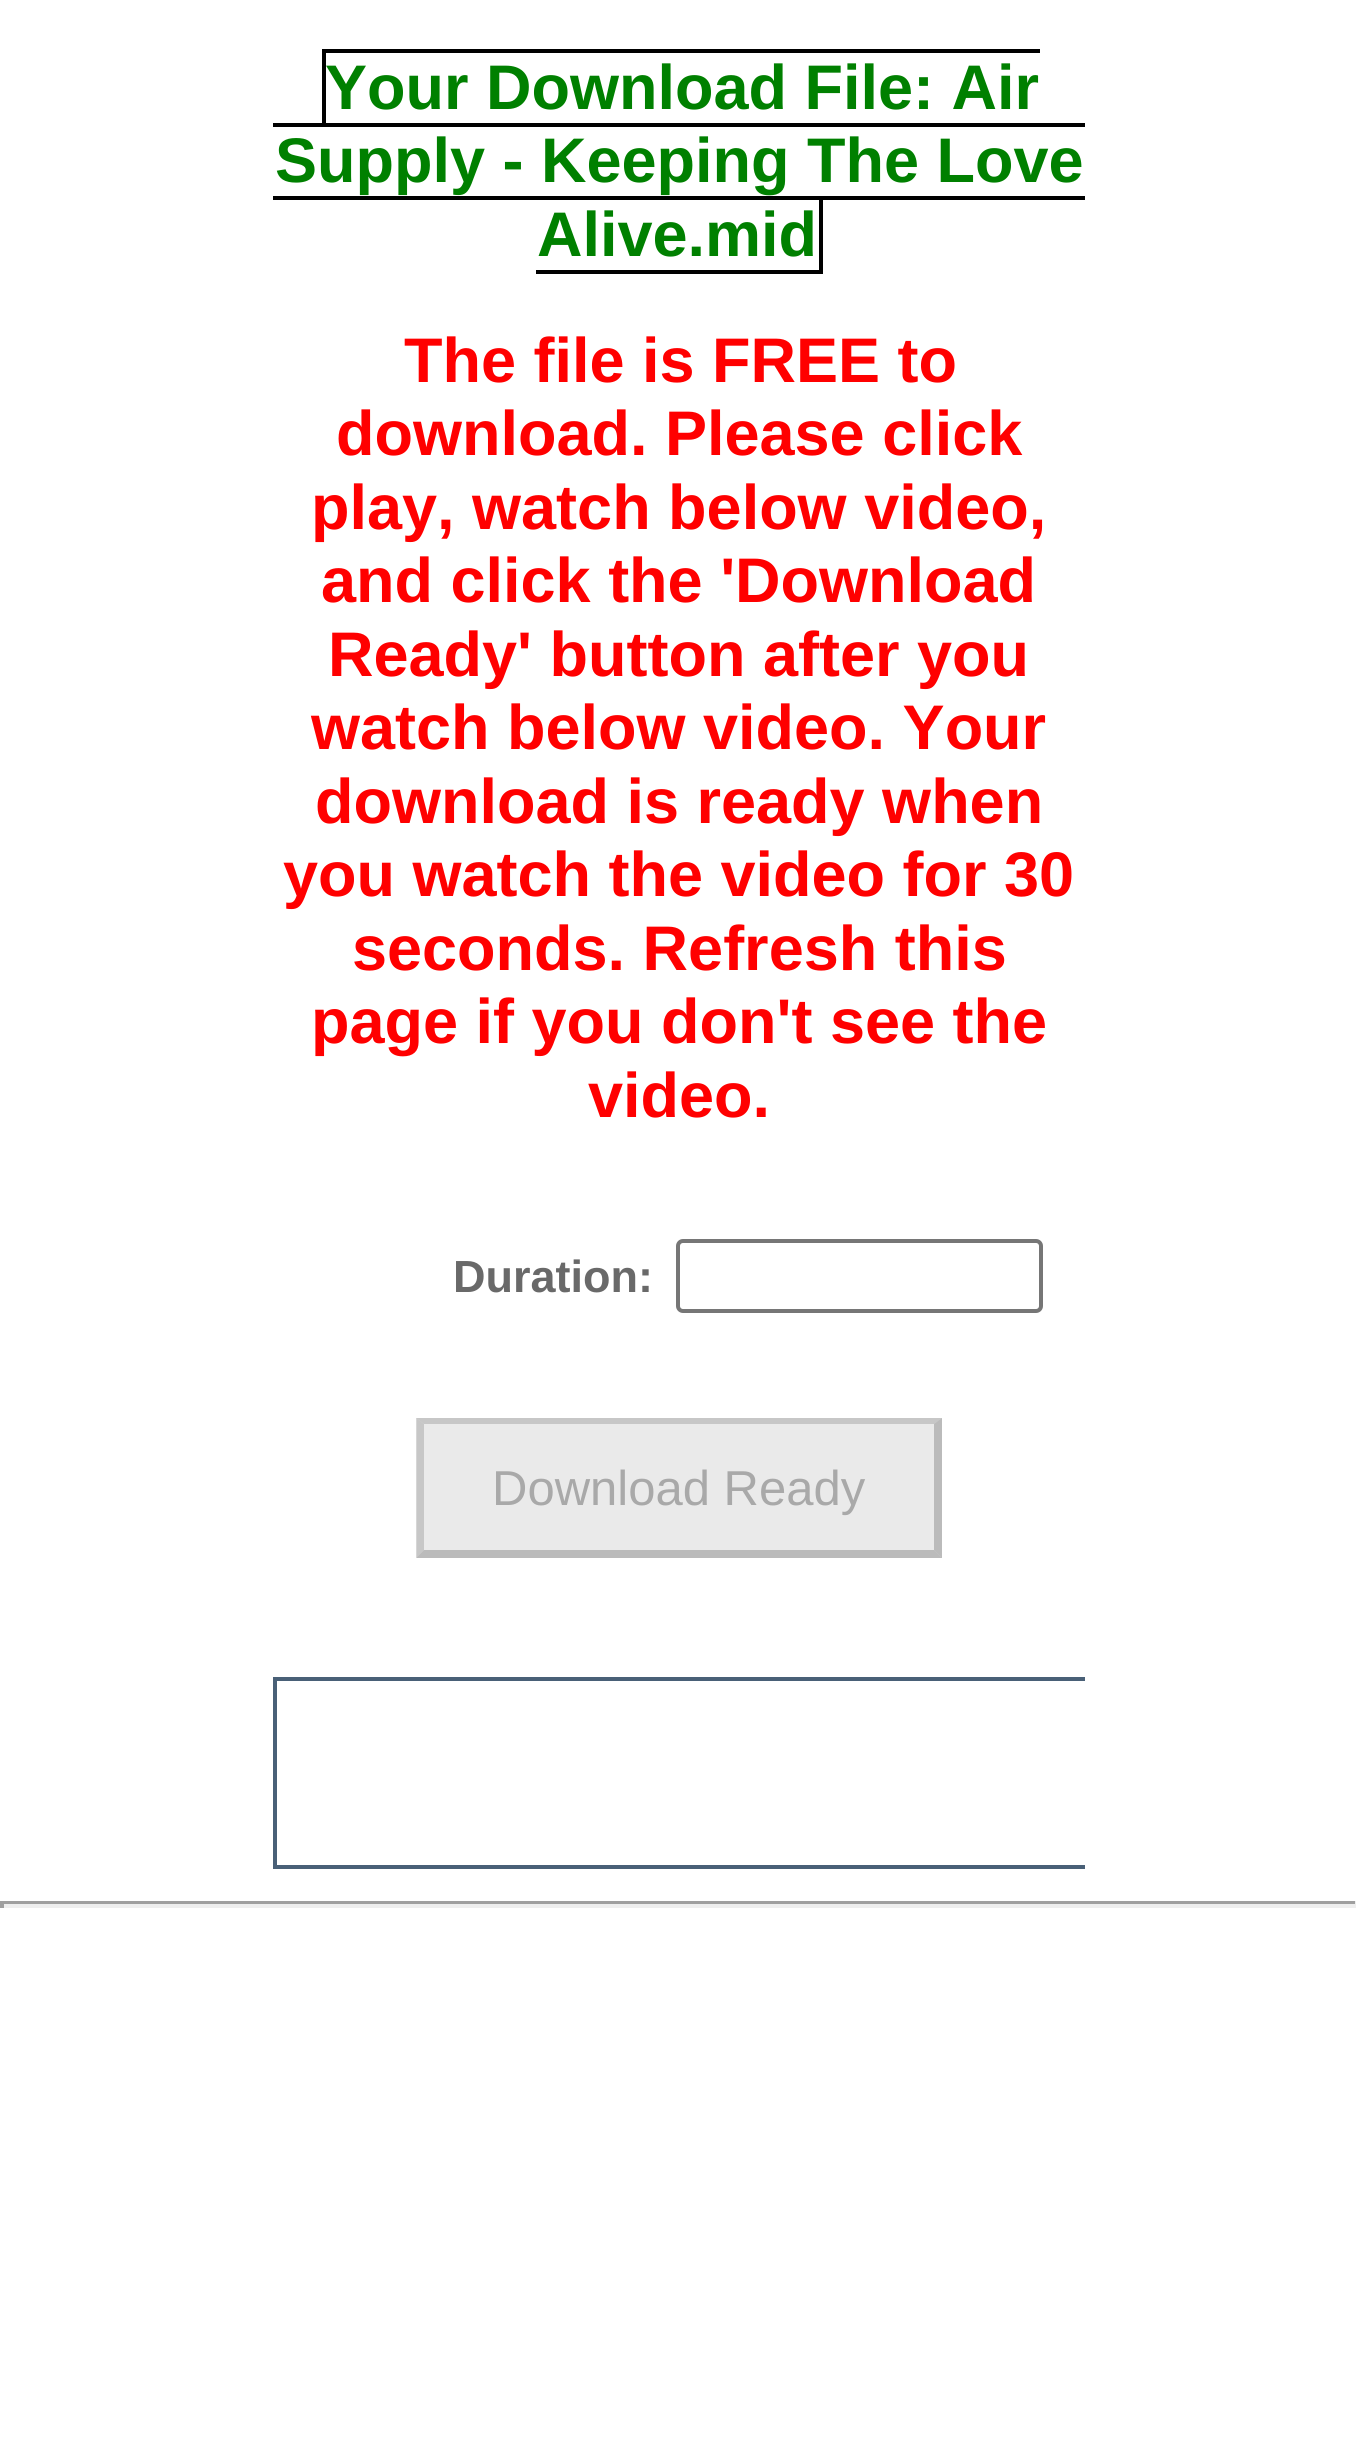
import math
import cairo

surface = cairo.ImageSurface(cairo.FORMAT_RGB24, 1356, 2461)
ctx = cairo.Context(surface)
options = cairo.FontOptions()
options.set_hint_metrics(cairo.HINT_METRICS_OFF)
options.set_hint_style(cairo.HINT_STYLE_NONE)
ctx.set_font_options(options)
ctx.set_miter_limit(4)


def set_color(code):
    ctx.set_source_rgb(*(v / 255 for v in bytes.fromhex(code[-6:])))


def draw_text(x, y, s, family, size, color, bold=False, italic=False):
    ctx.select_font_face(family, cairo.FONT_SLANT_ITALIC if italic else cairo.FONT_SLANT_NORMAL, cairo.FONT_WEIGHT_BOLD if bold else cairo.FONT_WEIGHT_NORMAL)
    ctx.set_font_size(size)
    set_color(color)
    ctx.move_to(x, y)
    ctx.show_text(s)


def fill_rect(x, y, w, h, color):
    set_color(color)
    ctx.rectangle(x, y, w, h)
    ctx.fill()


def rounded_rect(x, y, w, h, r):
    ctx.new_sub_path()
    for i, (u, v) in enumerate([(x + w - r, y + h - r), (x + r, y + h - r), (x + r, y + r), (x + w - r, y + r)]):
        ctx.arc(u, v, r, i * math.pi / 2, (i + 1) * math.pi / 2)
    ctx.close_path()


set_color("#ffffff")
ctx.paint()
draw_text(325, 109, "Your Download File: Air", "Liberation Sans", 63, "#008000", bold=True)
fill_rect(322, 49, 718, 4, "#000000")
fill_rect(322, 49, 4, 77, "#000000")
fill_rect(273, 123, 812, 4, "#000000")
draw_text(275, 182, "Supply - Keeping The Love", "Liberation Sans", 63, "#008000", bold=True)
fill_rect(273, 196, 812, 4, "#000000")
draw_text(537, 256, "Alive.mid", "Liberation Sans", 63, "#008000", bold=True)
fill_rect(819, 196, 4, 77, "#000000")
fill_rect(536, 270, 287, 4, "#000000")
draw_text(404, 382, "The file is FREE to", "Liberation Sans", 63, "#ff0000", bold=True)
draw_text(336, 455, "download. Please click", "Liberation Sans", 63, "#ff0000", bold=True)
draw_text(311, 529, "play, watch below video,", "Liberation Sans", 63, "#ff0000", bold=True)
draw_text(321, 602, "and click the 'Download", "Liberation Sans", 63, "#ff0000", bold=True)
draw_text(328, 676, "Ready' button after you", "Liberation Sans", 63, "#ff0000", bold=True)
draw_text(311, 749, "watch below video. Your", "Liberation Sans", 63, "#ff0000", bold=True)
draw_text(315, 823, "download is ready when", "Liberation Sans", 63, "#ff0000", bold=True)
draw_text(283, 896, "you watch the video for 30", "Liberation Sans", 63, "#ff0000", bold=True)
draw_text(352, 970, "seconds. Refresh this", "Liberation Sans", 63, "#ff0000", bold=True)
draw_text(311, 1043, "page if you don't see the", "Liberation Sans", 63, "#ff0000", bold=True)
draw_text(588, 1117, "video.", "Liberation Sans", 63, "#ff0000", bold=True)
draw_text(453, 1292, "Duration:", "Liberation Sans", 45, "#696969", bold=True)
rounded_rect(678, 1241, 363, 70, 5)
set_color("#767676")
ctx.set_line_width(4)
ctx.stroke()
fill_rect(417, 1418, 525, 140, "#eaeaea")
set_color("#c7c7c7")
ctx.new_path()
ctx.move_to(416, 1418)
ctx.line_to(942, 1418)
ctx.line_to(934, 1424)
ctx.line_to(424, 1424)
ctx.close_path()
ctx.fill()
ctx.set_source_rgba(0.31, 0.31, 0.31, 0.3)
ctx.new_path()
ctx.move_to(942, 1418)
ctx.line_to(942, 1558)
ctx.line_to(934, 1550)
ctx.line_to(934, 1424)
ctx.close_path()
ctx.fill()
ctx.new_path()
ctx.move_to(942, 1558)
ctx.line_to(416, 1558)
ctx.line_to(424, 1550)
ctx.line_to(934, 1550)
ctx.close_path()
ctx.fill()
ctx.set_source_rgba(0.463, 0.463, 0.463, 0.3)
ctx.new_path()
ctx.move_to(416, 1558)
ctx.line_to(416, 1418)
ctx.line_to(424, 1424)
ctx.line_to(424, 1550)
ctx.close_path()
ctx.fill()
draw_text(492, 1505, "Download Ready", "Liberation Sans", 49, "#a9a9a9")
ctx.save()
ctx.rectangle(273, 0, 812, 1869)
ctx.clip()
ctx.rectangle(275, 1679, 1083, 188)
set_color("#496077")
ctx.stroke()
ctx.restore()
fill_rect(0, 1901, 1356, 3, "#9f9f9f")
fill_rect(1355, 1901, 1, 7, "#eeeeee")
fill_rect(0, 1904, 1356, 4, "#eeeeee")
fill_rect(0, 1901, 4, 7, "#9f9f9f")
surface.write_to_png("output.png")
